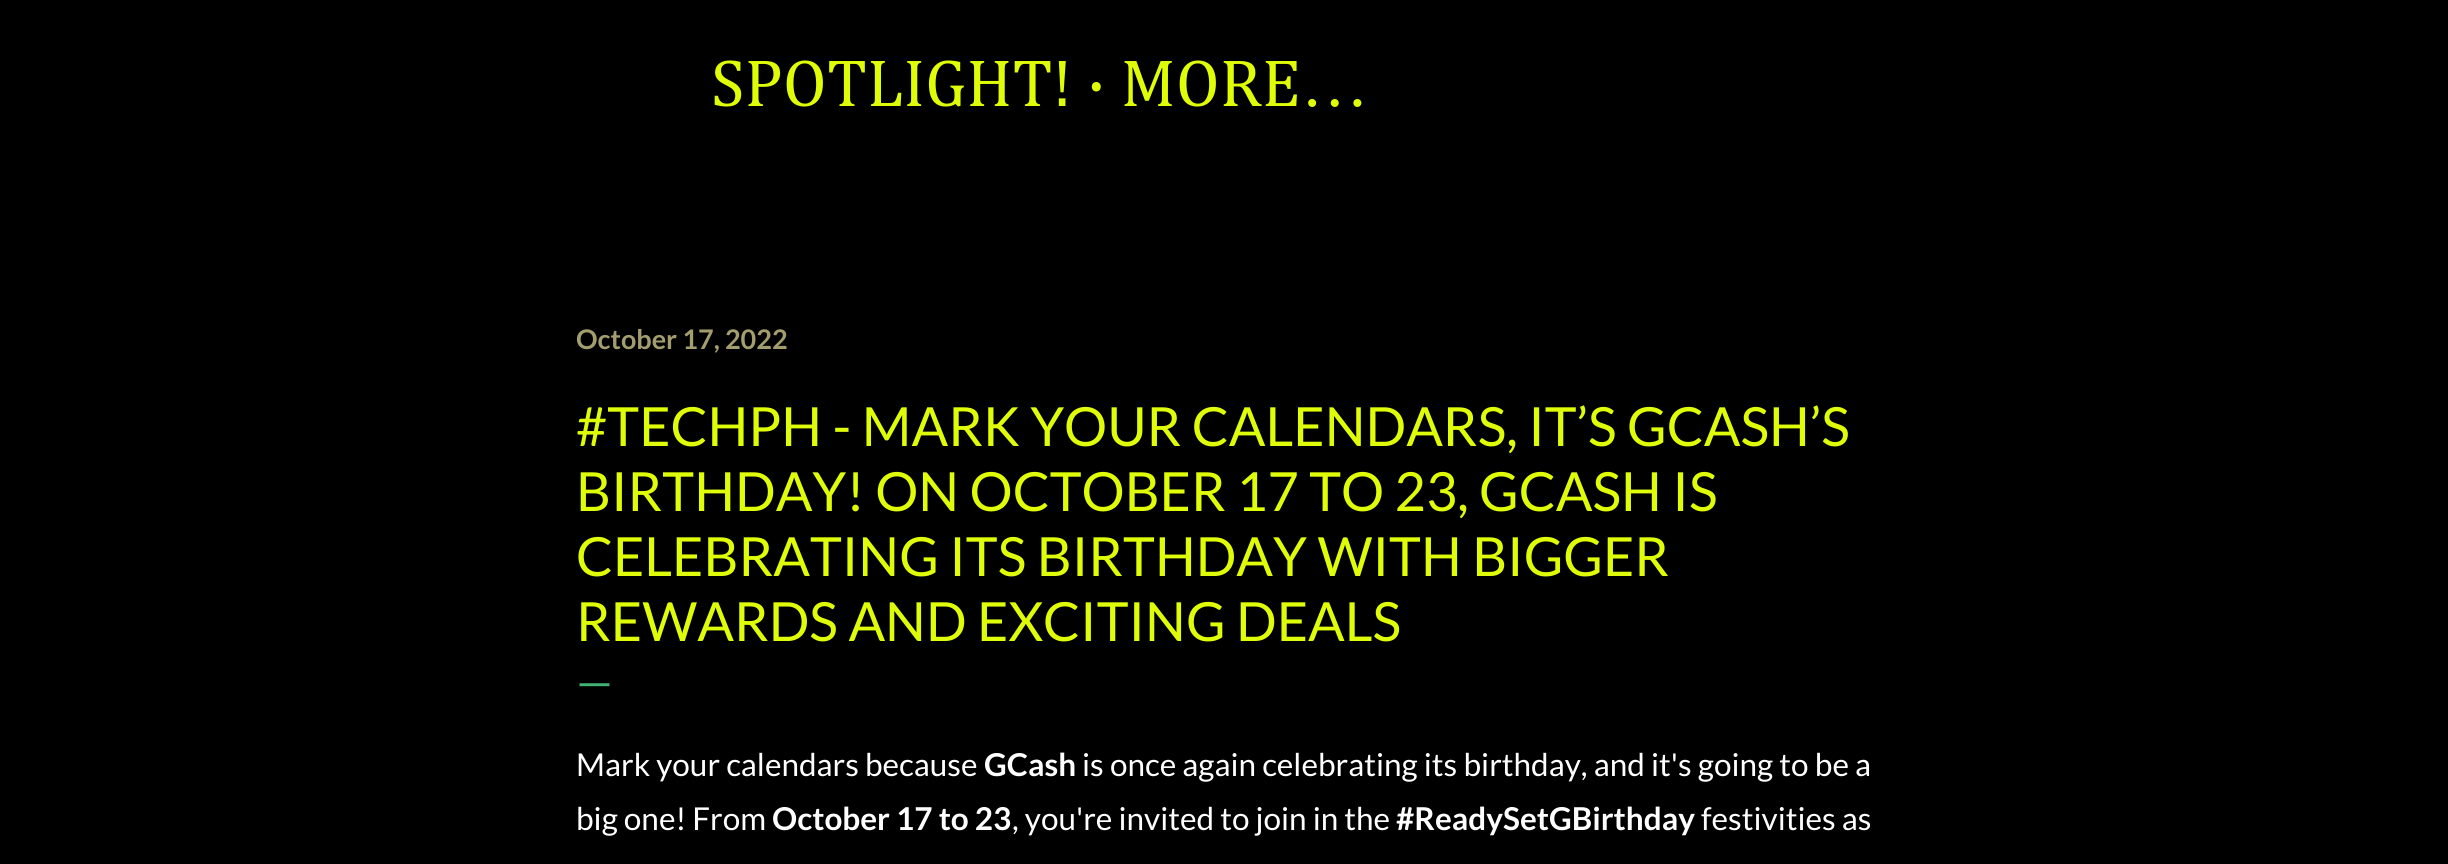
import math
import cairo

surface = cairo.ImageSurface(cairo.FORMAT_RGB24, 2448, 864)
ctx = cairo.Context(surface)
options = cairo.FontOptions()
options.set_hint_metrics(cairo.HINT_METRICS_OFF)
options.set_hint_style(cairo.HINT_STYLE_NONE)
ctx.set_font_options(options)
ctx.set_miter_limit(4)


def set_color(code):
    ctx.set_source_rgb(*(v / 255 for v in bytes.fromhex(code[-6:])))


def draw_text(x, y, s, family, size, color, bold=False, italic=False):
    ctx.select_font_face(family, cairo.FONT_SLANT_ITALIC if italic else cairo.FONT_SLANT_NORMAL, cairo.FONT_WEIGHT_BOLD if bold else cairo.FONT_WEIGHT_NORMAL)
    ctx.set_font_size(size)
    set_color(color)
    ctx.move_to(x, y)
    ctx.show_text(s)


def draw_spaced(x, y, s, letter, word):
    ctx.move_to(x, y)
    for ch in s:
        ctx.show_text(ch)
        ctx.rel_move_to(letter + word * (ch == ' '), 0)


set_color("#000000")
ctx.paint()
draw_text(711, 106, "SPOTLIGHT! · MORE", "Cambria", 67.5, "#dffd06")
draw_text(1301, 106, "…", "Liberation Serif", 67.5, "#dffd06")
draw_text(576, 349, "October 17, 2022", "Lato", 27, "#a49d6e", bold=True)
draw_text(576, 446, "#TECHPH - MARK YOUR CALENDARS, IT’S GCASH’S", "Lato", 54, "#dffd06")
draw_text(576, 511, "BIRTHDAY! ON OCTOBER 17 TO 23, GCASH IS", "Lato", 54, "#dffd06")
draw_text(576, 576, "CELEBRATING ITS BIRTHDAY WITH BIGGER", "Lato", 54, "#dffd06")
draw_text(576, 641, "REWARDS AND EXCITING DEALS", "Lato", 54, "#dffd06")
draw_text(576, 698, "—", "Lato", 45, "#41b375")
draw_text(576, 776, "Mark your calendars because", "Lato", 31.5, "#ffffff")
draw_text(984, 776, "GCash", "Lato", 31.5, "#ffffff", bold=True)
ctx.select_font_face("Lato")
draw_spaced(1082, 776, "is once again celebrating its birthday, and it's going to be a", 0, 0.1)
draw_text(576, 830, "big one! From", "Lato", 31.5, "#ffffff")
draw_text(772, 830, "October 17 to 23", "Lato", 31.5, "#ffffff", bold=True)
draw_text(1012, 830, ", you're invited to join in the", "Lato", 31.5, "#ffffff")
draw_text(1396, 830, "#ReadySetGBirthday", "Lato", 31.5, "#ffffff", bold=True)
draw_text(1701, 830, "festivities as", "Lato", 31.5, "#ffffff")
surface.write_to_png("output.png")
